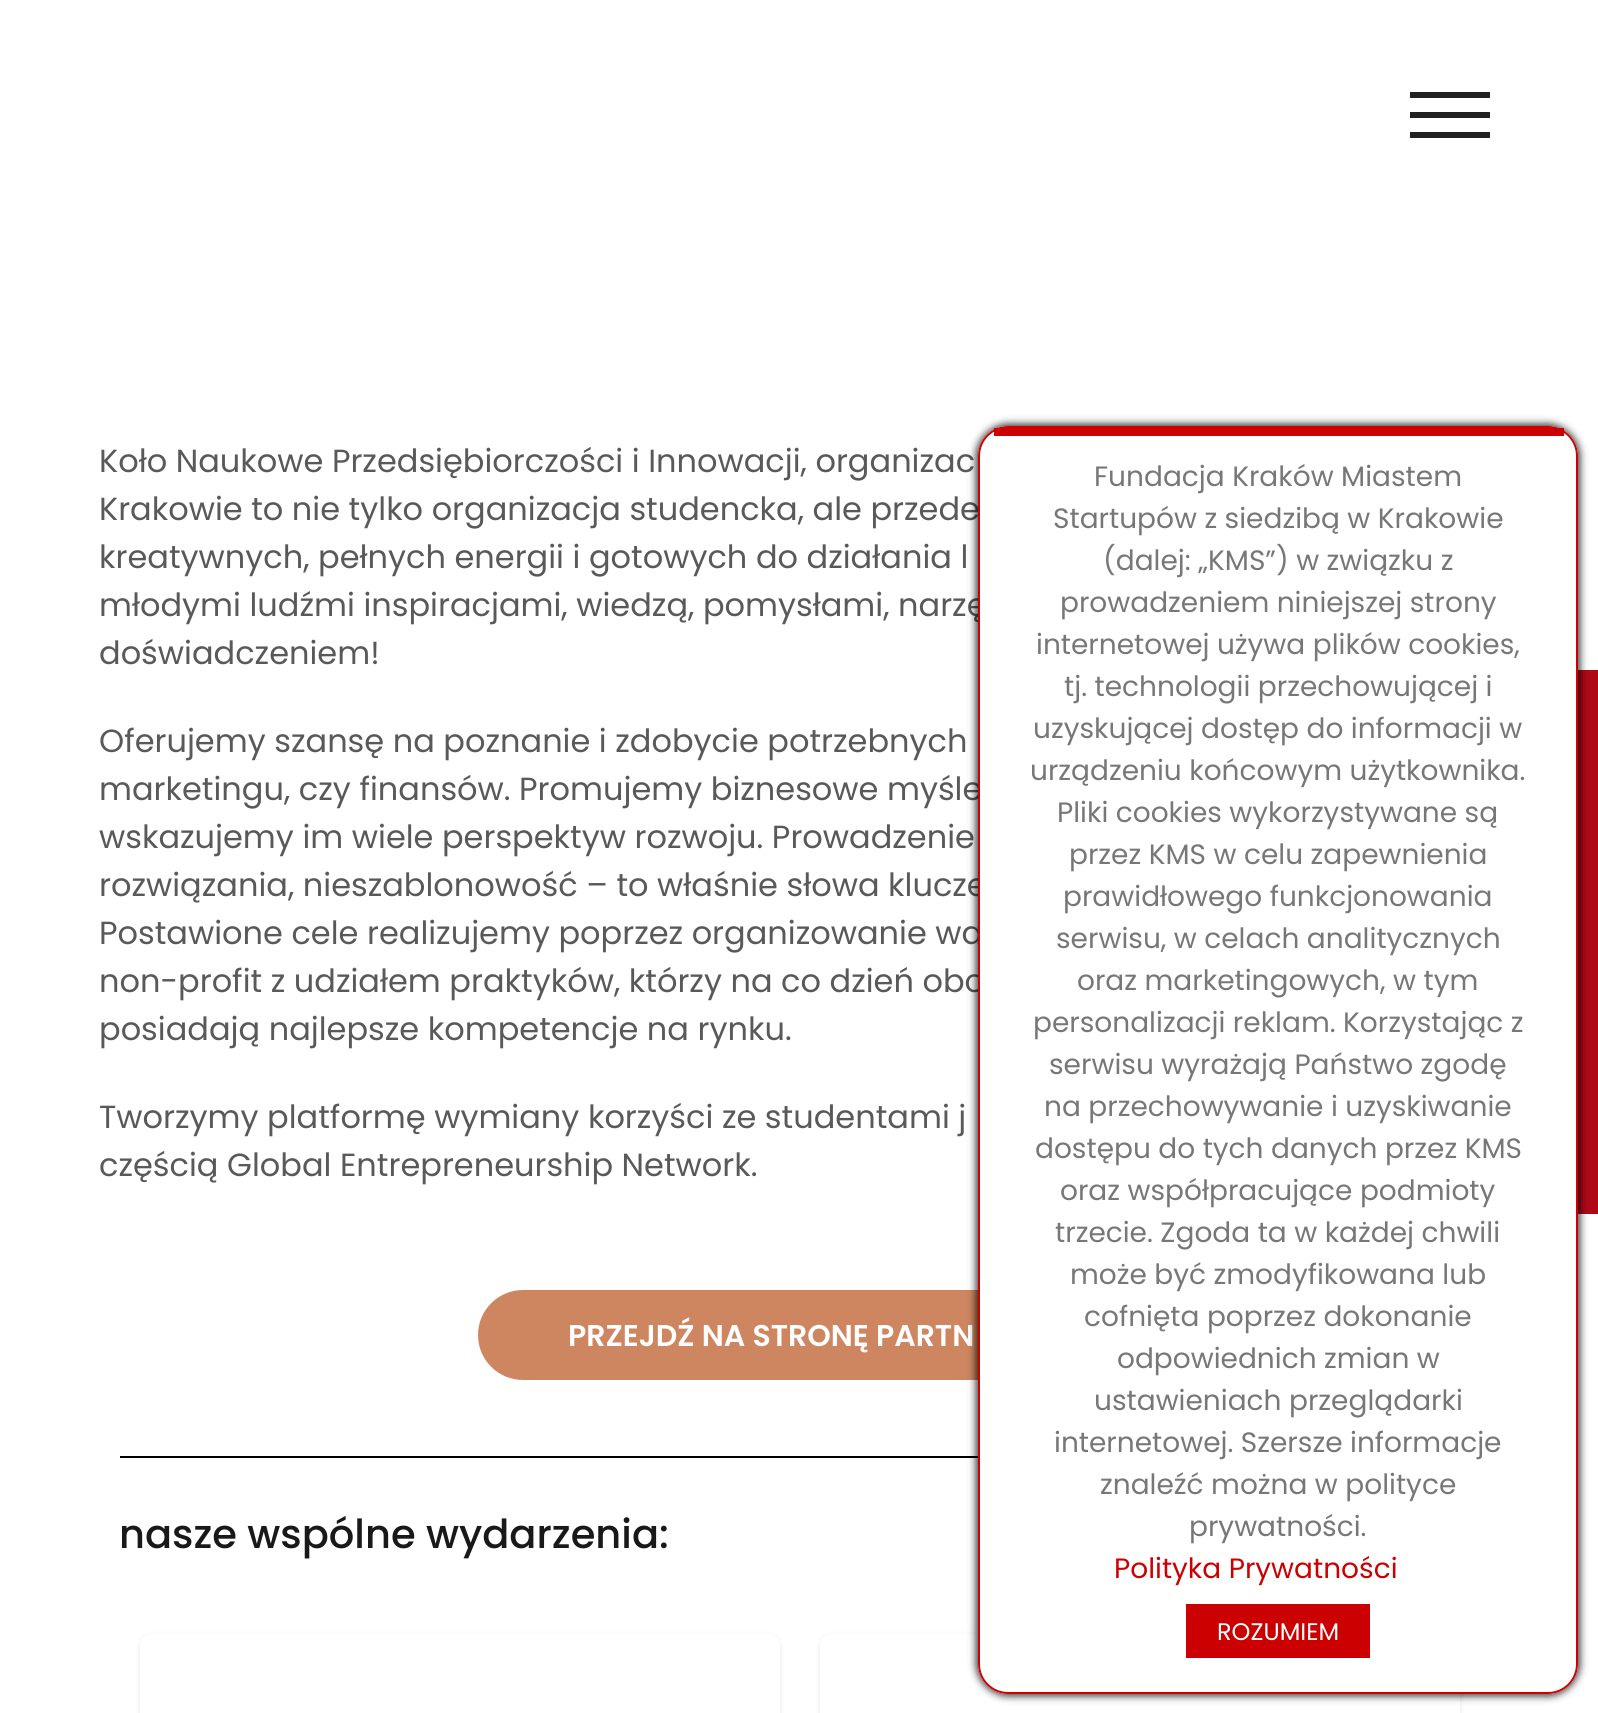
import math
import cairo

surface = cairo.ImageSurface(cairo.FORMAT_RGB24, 1598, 1713)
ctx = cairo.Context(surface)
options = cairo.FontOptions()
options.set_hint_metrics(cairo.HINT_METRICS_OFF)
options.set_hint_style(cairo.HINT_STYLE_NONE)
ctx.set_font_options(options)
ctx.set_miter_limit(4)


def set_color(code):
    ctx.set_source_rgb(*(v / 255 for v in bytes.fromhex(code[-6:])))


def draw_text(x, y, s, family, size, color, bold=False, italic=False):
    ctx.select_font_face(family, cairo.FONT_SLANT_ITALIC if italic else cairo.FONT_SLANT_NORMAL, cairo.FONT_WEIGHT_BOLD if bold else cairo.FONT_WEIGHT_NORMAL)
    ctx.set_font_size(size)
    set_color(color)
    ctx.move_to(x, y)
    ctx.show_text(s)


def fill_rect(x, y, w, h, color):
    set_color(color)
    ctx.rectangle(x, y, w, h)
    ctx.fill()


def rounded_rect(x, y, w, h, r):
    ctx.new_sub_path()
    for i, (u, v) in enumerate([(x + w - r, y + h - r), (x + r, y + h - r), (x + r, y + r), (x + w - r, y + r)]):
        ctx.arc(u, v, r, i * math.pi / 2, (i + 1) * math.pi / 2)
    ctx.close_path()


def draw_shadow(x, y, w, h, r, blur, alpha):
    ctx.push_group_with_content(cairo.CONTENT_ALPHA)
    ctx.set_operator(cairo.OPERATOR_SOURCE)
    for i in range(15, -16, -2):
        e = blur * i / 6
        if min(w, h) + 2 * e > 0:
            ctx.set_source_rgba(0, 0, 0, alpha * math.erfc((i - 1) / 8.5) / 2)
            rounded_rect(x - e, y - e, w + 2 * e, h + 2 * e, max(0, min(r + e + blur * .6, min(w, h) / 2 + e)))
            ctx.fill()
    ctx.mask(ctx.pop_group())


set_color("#ffffff")
ctx.paint()
fill_rect(1410, 112, 80, 6, "#212121")
fill_rect(1410, 92, 80, 6, "#212121")
fill_rect(1410, 132, 80, 6, "#212121")
draw_text(99, 472, "Koło Naukowe Przedsiębiorczości i Innowacji, organizac", "Poppins", 32, "#595959")
draw_text(99, 520, "Krakowie to nie tylko organizacja studencka, ale przede", "Poppins", 32, "#595959")
draw_text(99, 568, "kreatywnych, pełnych energii i gotowych do działania l", "Poppins", 32, "#595959")
draw_text(99, 616, "młodymi ludźmi inspiracjami, wiedzą, pomysłami, narzę", "Poppins", 32, "#595959")
draw_text(99, 664, "doświadczeniem!", "Poppins", 32, "#595959")
draw_text(99, 752, "Oferujemy szansę na poznanie i zdobycie potrzebnych", "Poppins", 32, "#595959")
draw_text(99, 800, "marketingu, czy finansów. Promujemy biznesowe myśle", "Poppins", 32, "#595959")
draw_text(99, 848, "wskazujemy im wiele perspektyw rozwoju. Prowadzenie", "Poppins", 32, "#595959")
draw_text(99, 896, "rozwiązania, nieszablonowość – to właśnie słowa klucze", "Poppins", 32, "#595959")
draw_text(99, 944, "Postawione cele realizujemy poprzez organizowanie wa", "Poppins", 32, "#595959")
draw_text(99, 992, "non-profit z udziałem praktyków, którzy na co dzień obc", "Poppins", 32, "#595959")
draw_text(99, 1040, "posiadają najlepsze kompetencje na rynku.", "Poppins", 32, "#595959")
draw_text(99, 1128, "Tworzymy platformę wymiany korzyści ze studentami j", "Poppins", 32, "#595959")
draw_text(99, 1176, "częścią Global Entrepreneurship Network.", "Poppins", 32, "#595959")
set_color("#cd8660")
rounded_rect(478, 1290, 642, 90, 45)
ctx.fill()
draw_text(568, 1346, "PRZEJDŹ NA STRONĘ PARTN", "Poppins SemiBold", 30, "#ffffff")
fill_rect(120, 1456, 858, 2, "#000000")
draw_text(119, 1548, "nasze wspólne wydarzenia:", "Poppins Medium", 40, "#191919")
set_color("#000000")
draw_shadow(140, 1636, 640, 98, 12, 3, 0.1)
set_color("#ffffff")
rounded_rect(140, 1634, 640, 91, 12)
ctx.fill()
set_color("#000000")
draw_shadow(820, 1636, 640, 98, 12, 3, 0.1)
set_color("#ffffff")
rounded_rect(820, 1634, 640, 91, 12)
ctx.fill()
fill_rect(1578, 670, 20, 544, "#af0917")
ctx.save()
ctx.set_fill_rule(cairo.FILL_RULE_EVEN_ODD)
ctx.new_path()
ctx.move_to(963, 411)
ctx.line_to(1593, 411)
ctx.line_to(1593, 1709)
ctx.line_to(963, 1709)
ctx.close_path()
ctx.move_to(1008, 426)
ctx.line_to(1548, 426)
ctx.curve_to(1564.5, 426, 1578, 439.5, 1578, 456)
ctx.line_to(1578, 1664)
ctx.curve_to(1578, 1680.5, 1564.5, 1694, 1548, 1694)
ctx.line_to(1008, 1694)
ctx.curve_to(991.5, 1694, 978, 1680.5, 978, 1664)
ctx.line_to(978, 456)
ctx.curve_to(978, 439.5, 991.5, 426, 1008, 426)
ctx.close_path()
ctx.clip()
set_color("#000000")
draw_shadow(976, 424, 604, 1272, 32, 4, 0.8)
ctx.restore()
set_color("#ffffff")
ctx.new_path()
ctx.move_to(1008, 436)
ctx.line_to(1548, 436)
ctx.curve_to(1563, 436, 1576, 445, 1576, 456)
ctx.line_to(1576, 1664)
ctx.curve_to(1576, 1679, 1563, 1692, 1548, 1692)
ctx.line_to(1008, 1692)
ctx.curve_to(993, 1692, 980, 1679, 980, 1664)
ctx.line_to(980, 456)
ctx.curve_to(980, 445, 993, 436, 1008, 436)
ctx.close_path()
ctx.fill()
rounded_rect(979, 427, 598, 1266, 29)
set_color("#cc0000")
ctx.stroke()
fill_rect(994, 428, 570, 8, "#cc0000")
draw_text(1094, 486, "Fundacja Kraków Miastem", "Poppins", 28, "#777777")
draw_text(1053, 528, "Startupów z siedzibą w Krakowie", "Poppins", 28, "#777777")
draw_text(1103, 570, "(dalej: „KMS”) w związku z", "Poppins", 28, "#777777")
draw_text(1060, 612, "prowadzeniem niniejszej strony", "Poppins", 28, "#777777")
draw_text(1036, 654, "internetowej używa plików cookies,", "Poppins", 28, "#777777")
draw_text(1064, 696, "tj. technologii przechowującej i", "Poppins", 28, "#777777")
draw_text(1033, 738, "uzyskującej dostęp do informacji w", "Poppins", 28, "#777777")
draw_text(1030, 780, "urządzeniu końcowym użytkownika.", "Poppins", 28, "#777777")
draw_text(1057, 822, "Pliki cookies wykorzystywane są", "Poppins", 28, "#777777")
draw_text(1069, 864, "przez KMS w celu zapewnienia", "Poppins", 28, "#777777")
draw_text(1063, 906, "prawidłowego funkcjonowania", "Poppins", 28, "#777777")
draw_text(1056, 948, "serwisu, w celach analitycznych", "Poppins", 28, "#777777")
draw_text(1077, 990, "oraz marketingowych, w tym", "Poppins", 28, "#777777")
draw_text(1033, 1032, "personalizacji reklam. Korzystając z", "Poppins", 28, "#777777")
draw_text(1049, 1074, "serwisu wyrażają Państwo zgodę", "Poppins", 28, "#777777")
draw_text(1044, 1116, "na przechowywanie i uzyskiwanie", "Poppins", 28, "#777777")
draw_text(1035, 1158, "dostępu do tych danych przez KMS", "Poppins", 28, "#777777")
draw_text(1060, 1200, "oraz współpracujące podmioty", "Poppins", 28, "#777777")
draw_text(1055, 1242, "trzecie. Zgoda ta w każdej chwili", "Poppins", 28, "#777777")
draw_text(1070, 1284, "może być zmodyfikowana lub", "Poppins", 28, "#777777")
draw_text(1084, 1326, "cofnięta poprzez dokonanie", "Poppins", 28, "#777777")
draw_text(1117, 1368, "odpowiednich zmian w", "Poppins", 28, "#777777")
draw_text(1094, 1410, "ustawieniach przeglądarki", "Poppins", 28, "#777777")
draw_text(1054, 1452, "internetowej. Szersze informacje", "Poppins", 28, "#777777")
draw_text(1100, 1494, "znaleźć można w polityce", "Poppins", 28, "#777777")
draw_text(1189, 1536, "prywatności.", "Poppins", 28, "#777777")
draw_text(1114, 1578, "Polityka Prywatności", "Poppins", 28, "#cc0000")
fill_rect(1186, 1604, 184, 54, "#cc0000")
draw_text(1217, 1640, "ROZUMIEM", "Poppins", 24, "#ffffff")
surface.write_to_png("output.png")
